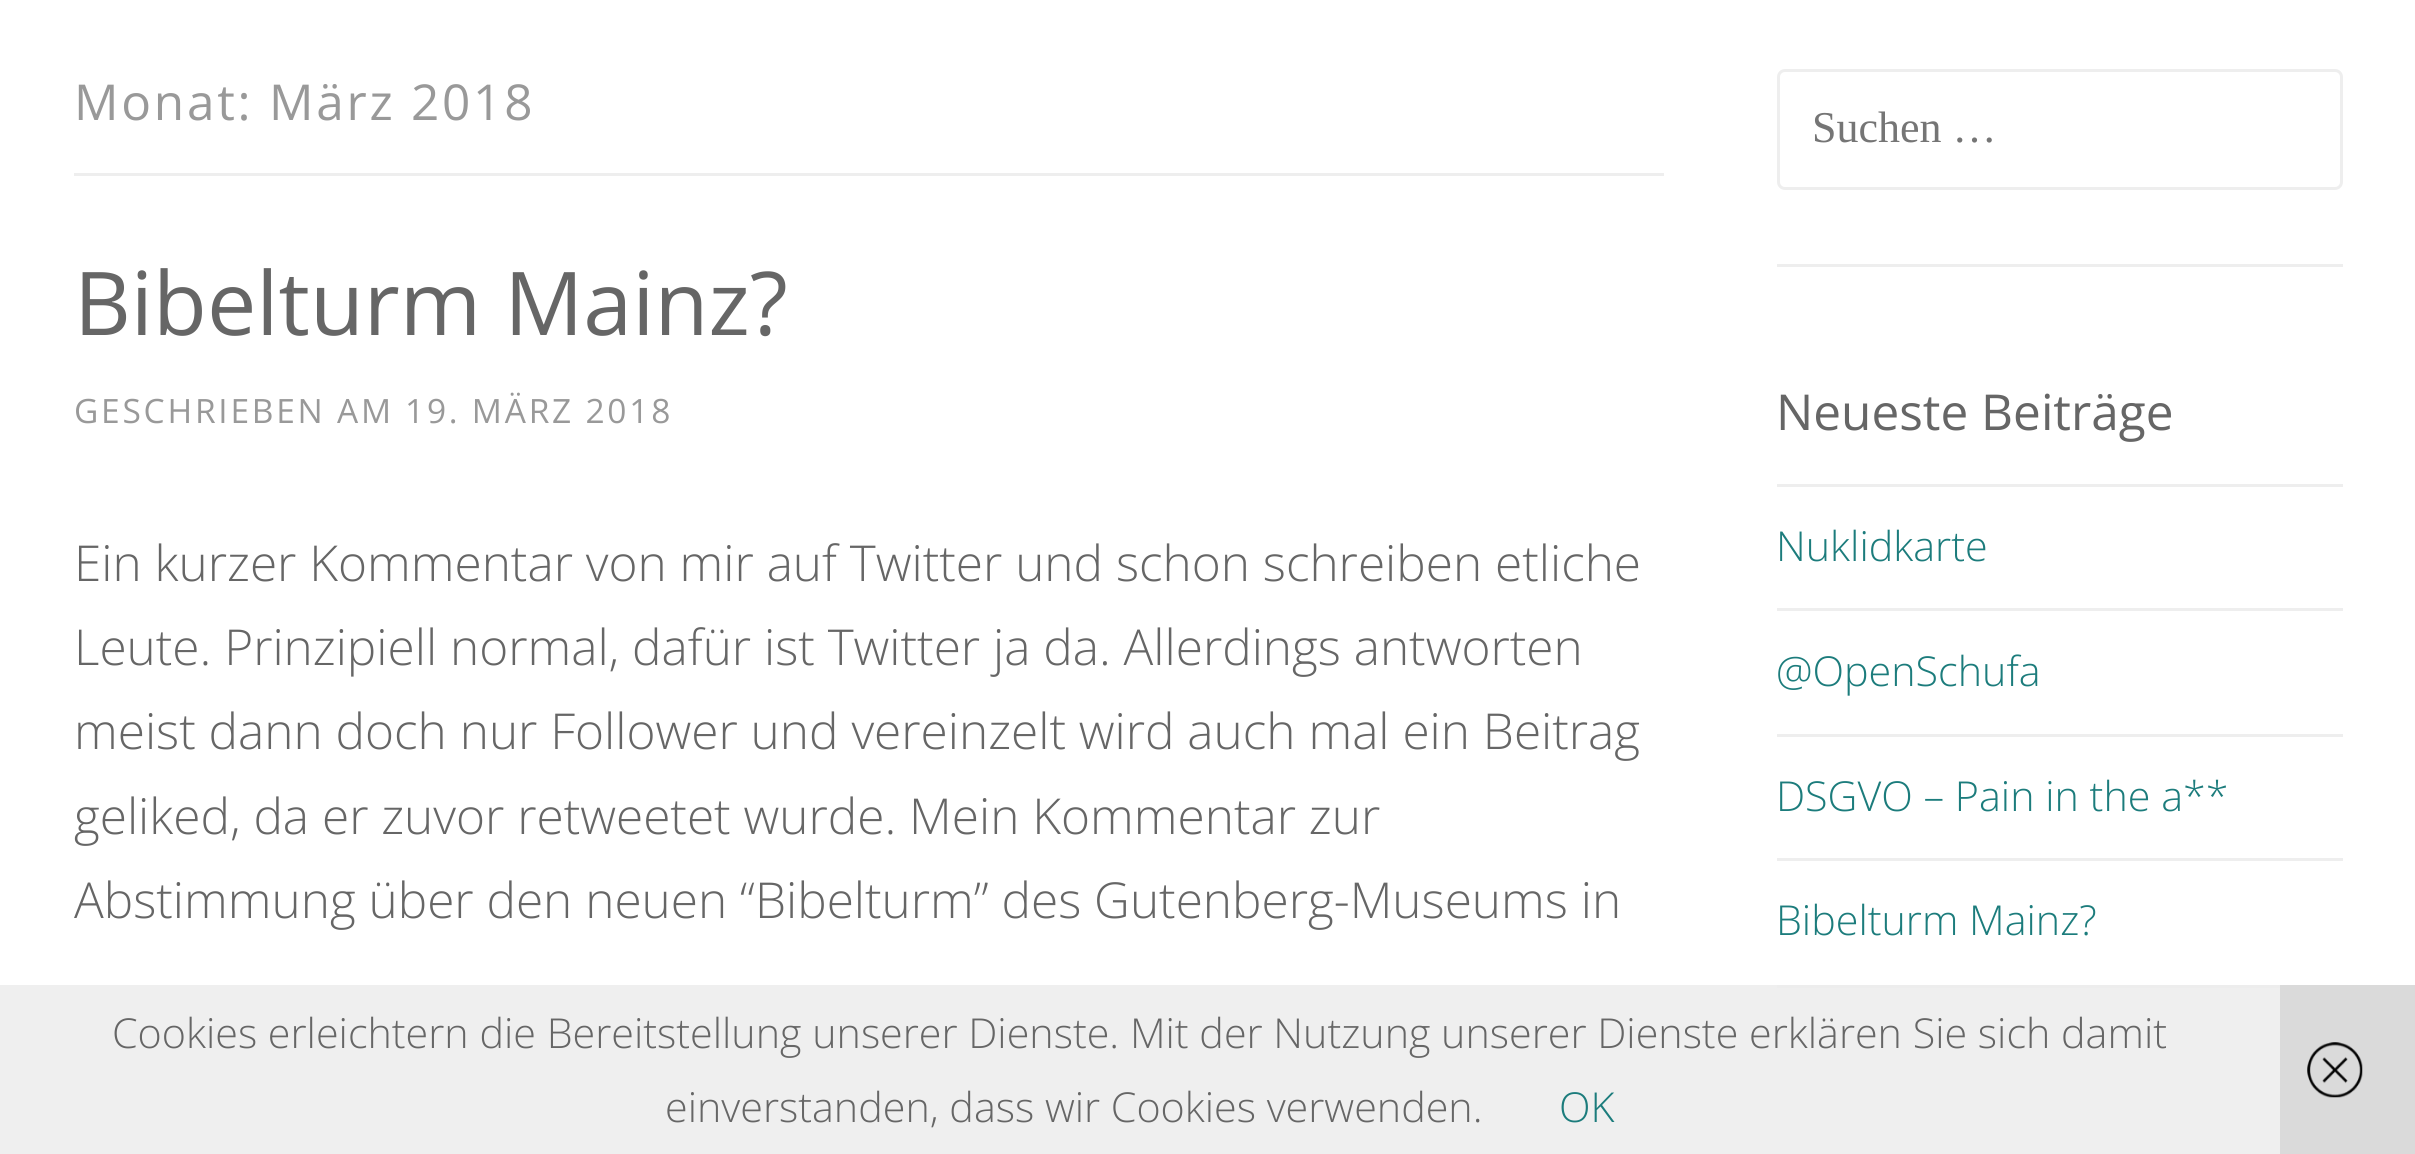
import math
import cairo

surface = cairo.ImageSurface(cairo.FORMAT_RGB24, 2415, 1154)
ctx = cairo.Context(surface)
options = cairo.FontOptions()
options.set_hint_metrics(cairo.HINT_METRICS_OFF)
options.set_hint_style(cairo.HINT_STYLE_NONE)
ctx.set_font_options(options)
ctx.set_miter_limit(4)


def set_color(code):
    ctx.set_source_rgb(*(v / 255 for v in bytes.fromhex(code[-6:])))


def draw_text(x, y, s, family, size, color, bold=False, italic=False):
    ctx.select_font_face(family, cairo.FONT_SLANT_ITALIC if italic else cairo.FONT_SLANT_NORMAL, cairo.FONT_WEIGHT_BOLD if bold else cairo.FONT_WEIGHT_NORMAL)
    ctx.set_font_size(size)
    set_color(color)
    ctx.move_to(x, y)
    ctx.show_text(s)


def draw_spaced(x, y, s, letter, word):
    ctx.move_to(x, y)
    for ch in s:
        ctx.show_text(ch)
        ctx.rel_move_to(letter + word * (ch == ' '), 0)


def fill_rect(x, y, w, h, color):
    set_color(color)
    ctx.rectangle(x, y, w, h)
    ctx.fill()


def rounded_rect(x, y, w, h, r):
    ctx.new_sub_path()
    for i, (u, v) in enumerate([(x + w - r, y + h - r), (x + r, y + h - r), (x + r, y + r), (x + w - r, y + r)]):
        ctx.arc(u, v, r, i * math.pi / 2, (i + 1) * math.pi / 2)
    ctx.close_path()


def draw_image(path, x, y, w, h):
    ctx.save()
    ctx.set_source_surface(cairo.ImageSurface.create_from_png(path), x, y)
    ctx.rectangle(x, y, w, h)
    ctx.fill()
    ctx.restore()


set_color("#ffffff")
ctx.paint()
fill_rect(74, 173, 1590, 3, "#eeeeee")
ctx.select_font_face("Open Sans")
ctx.set_font_size(49.5)
set_color("#999999")
draw_spaced(74, 120, "Monat: März 2018", 2.75, 0)
draw_text(74, 335, "Bibelturm Mainz?", "Open Sans", 88, "#666666")
ctx.set_font_size(33.5)
set_color("#999999")
draw_spaced(74, 423, "GESCHRIEBEN AM", 2.75, 0)
draw_spaced(405, 423, "19. MÄRZ 2018", 2.75, 0)
draw_text(74, 581, "Ein kurzer Kommentar von mir auf Twitter und schon schreiben etliche", "Open Sans Light", 49.5, "#666666")
draw_text(74, 665, "Leute. Prinzipiell normal, dafür ist Twitter ja da. Allerdings antworten", "Open Sans Light", 49.5, "#666666")
draw_text(74, 749, "meist dann doch nur Follower und vereinzelt wird auch mal ein Beitrag", "Open Sans Light", 49.5, "#666666")
draw_text(74, 834, "geliked, da er zuvor retweetet wurde. Mein Kommentar zur", "Open Sans Light", 49.5, "#666666")
draw_text(74, 918, "Abstimmung über den neuen “Bibelturm” des Gutenberg-Museums in", "Open Sans Light", 49.5, "#666666")
fill_rect(1777, 264, 566, 3, "#eeeeee")
rounded_rect(1778.5, 70.5, 563, 118, 6.5)
ctx.set_line_width(3)
ctx.stroke()
draw_text(1812, 142, "Suchen …", "Liberation Serif", 44, "#757575")
draw_text(1776, 430, "Neueste Beiträge", "Open Sans", 49.5, "#666666")
fill_rect(1777, 484, 566, 3, "#eeeeee")
draw_text(1776, 561, "Nuklidkarte", "Open Sans Light", 41.25, "#1c7c7c")
fill_rect(1777, 608, 566, 3, "#eeeeee")
draw_text(1776, 686, "@OpenSchufa", "Open Sans Light", 41.25, "#1c7c7c")
fill_rect(1777, 734, 566, 3, "#eeeeee")
draw_text(1776, 811, "DSGVO – Pain in the a**", "Open Sans Light", 41.25, "#1c7c7c")
fill_rect(1777, 858, 566, 3, "#eeeeee")
draw_text(1776, 935, "Bibelturm Mainz?", "Open Sans Light", 41.25, "#1c7c7c")
fill_rect(1777, 985, 503, 3, "#eeeeee")
ctx.set_source_rgba(0.933, 0.933, 0.933, 0.9)
ctx.rectangle(0, 985, 2280, 169)
ctx.fill()
draw_text(112, 1048, "Cookies erleichtern die Bereitstellung unserer Dienste. Mit der Nutzung unserer Dienste erklären Sie sich damit", "Open Sans Light", 41.25, "#666666")
draw_text(665, 1122, "einverstanden, dass wir Cookies verwenden.", "Open Sans Light", 41.25, "#666666")
draw_text(1559, 1122, "OK", "Open Sans Light", 41.25, "#1c7c7c")
fill_rect(2280, 985, 135, 169, "#dadada")
draw_image("assets/img1.png", 2307, 1042, 56, 56)
surface.write_to_png("output.png")
